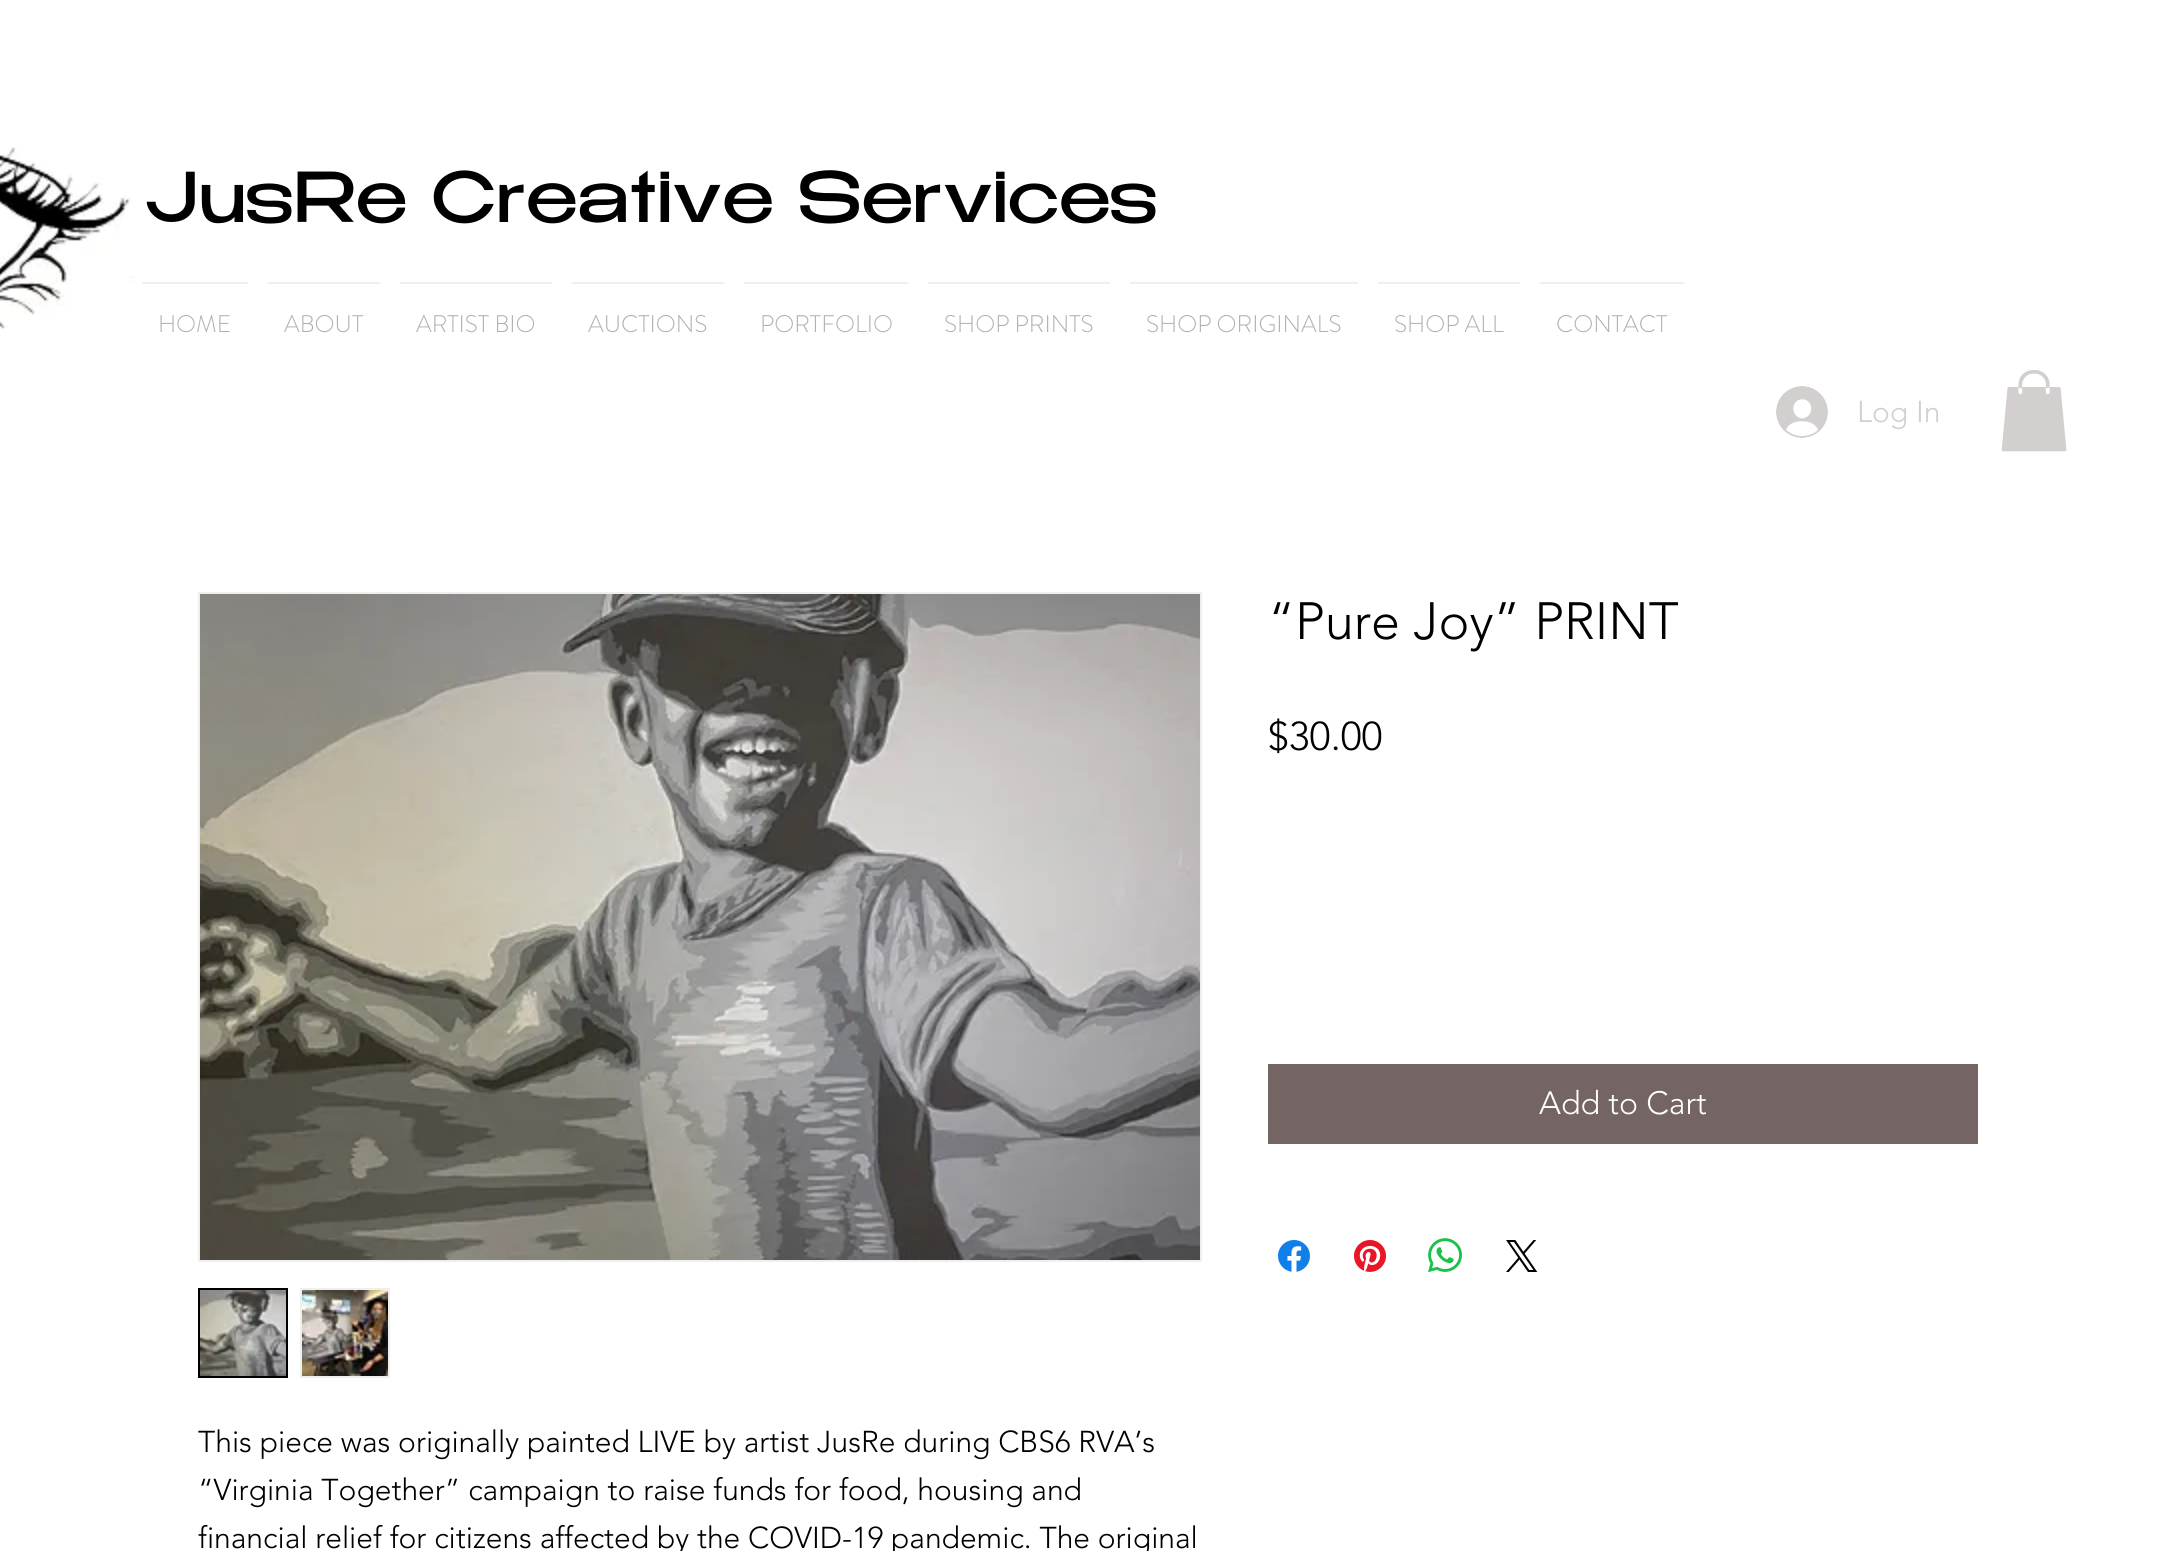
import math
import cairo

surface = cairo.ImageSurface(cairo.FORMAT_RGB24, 2176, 1551)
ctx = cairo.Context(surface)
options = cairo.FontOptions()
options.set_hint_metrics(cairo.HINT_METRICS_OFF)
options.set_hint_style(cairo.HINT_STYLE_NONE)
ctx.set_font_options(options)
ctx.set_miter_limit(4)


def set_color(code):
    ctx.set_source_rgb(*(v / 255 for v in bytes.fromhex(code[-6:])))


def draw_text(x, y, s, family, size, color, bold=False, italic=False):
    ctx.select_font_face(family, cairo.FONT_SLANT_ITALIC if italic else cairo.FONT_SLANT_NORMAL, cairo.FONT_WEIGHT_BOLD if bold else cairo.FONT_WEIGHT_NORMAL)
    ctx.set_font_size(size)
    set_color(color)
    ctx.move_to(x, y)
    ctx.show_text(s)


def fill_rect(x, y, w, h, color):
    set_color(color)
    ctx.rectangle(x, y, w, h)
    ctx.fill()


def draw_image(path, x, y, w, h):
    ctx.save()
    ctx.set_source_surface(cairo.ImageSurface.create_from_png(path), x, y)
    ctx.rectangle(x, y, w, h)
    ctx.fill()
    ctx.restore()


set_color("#ffffff")
ctx.paint()
draw_image("assets/img1.png", 0, 147, 134, 182)
draw_text(144, 222, "JusRe Creative Services", "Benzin", 68, "#000000")
fill_rect(142, 282, 106, 2, "#efefef")
draw_text(158, 332, "HOME", "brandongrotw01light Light", 24, "#000000")
fill_rect(268, 282, 112, 2, "#efefef")
draw_text(284, 332, "ABOUT", "brandongrotw01light Light", 24, "#000000")
fill_rect(400, 282, 152, 2, "#efefef")
draw_text(416, 332, "ARTIST BIO", "brandongrotw01light Light", 24, "#000000")
fill_rect(572, 282, 152, 2, "#efefef")
draw_text(588, 332, "AUCTIONS", "brandongrotw01light Light", 24, "#000000")
fill_rect(744, 282, 164, 2, "#efefef")
draw_text(760, 332, "PORTFOLIO", "brandongrotw01light Light", 24, "#000000")
fill_rect(928, 282, 182, 2, "#efefef")
draw_text(944, 332, "SHOP PRINTS", "brandongrotw01light Light", 24, "#000000")
fill_rect(1130, 282, 228, 2, "#efefef")
draw_text(1146, 332, "SHOP ORIGINALS", "brandongrotw01light Light", 24, "#000000")
fill_rect(1378, 282, 142, 2, "#efefef")
draw_text(1394, 332, "SHOP ALL", "brandongrotw01light Light", 24, "#000000")
fill_rect(1540, 282, 144, 2, "#efefef")
draw_text(1556, 332, "CONTACT", "brandongrotw01light Light", 24, "#000000")
draw_image("assets/img2.png", 1776, 386, 52, 52)
draw_text(1857, 422, "Log In", "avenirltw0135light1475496 Light", 30, "#756464")
draw_image("assets/img3.png", 2001, 370, 66, 82)
ctx.set_source_rgba(1, 1, 1, 0.69)
ctx.rectangle(160, 314, 1907, 138)
ctx.fill()
draw_text(1268, 639, "“Pure Joy” PRINT", "avenirltw0135light1475496 Light", 52, "#000000")
draw_text(1268, 750, "$30.00", "avenirltw0135light1475496 Light", 40, "#000000")
fill_rect(1268, 1064, 710, 80, "#756464")
draw_text(1539, 1114, "Add to Cart", "avenirltw0135light1475496 Light", 32, "#ffffff")
draw_image("assets/img4.png", 1278, 1240, 32, 32)
draw_image("assets/img5.png", 1354, 1240, 32, 32)
draw_image("assets/img6.png", 1428, 1238, 34, 35)
draw_image("assets/img7.png", 1506, 1240, 32, 32)
ctx.rectangle(199, 593, 1002, 668)
set_color("#efefef")
ctx.stroke()
draw_image("assets/img8.png", 200, 594, 1000, 666)
ctx.rectangle(199, 1289, 88, 88)
set_color("#000000")
ctx.stroke()
draw_image("assets/img9.png", 200, 1290, 86, 86)
fill_rect(300, 1288, 90, 90, "#efefef")
draw_image("assets/img10.png", 302, 1290, 86, 86)
draw_text(198, 1452, "This piece was originally painted LIVE by artist JusRe during CBS6 RVA’s", "avenirltw0135light1475496 Light", 30, "#000000")
draw_text(198, 1500, "“Virginia Together” campaign to raise funds for food, housing and", "avenirltw0135light1475496 Light", 30, "#000000")
draw_text(198, 1548, "financial relief for citizens affected by the COVID-19 pandemic. The original", "avenirltw0135light1475496 Light", 30, "#000000")
surface.write_to_png("output.png")
